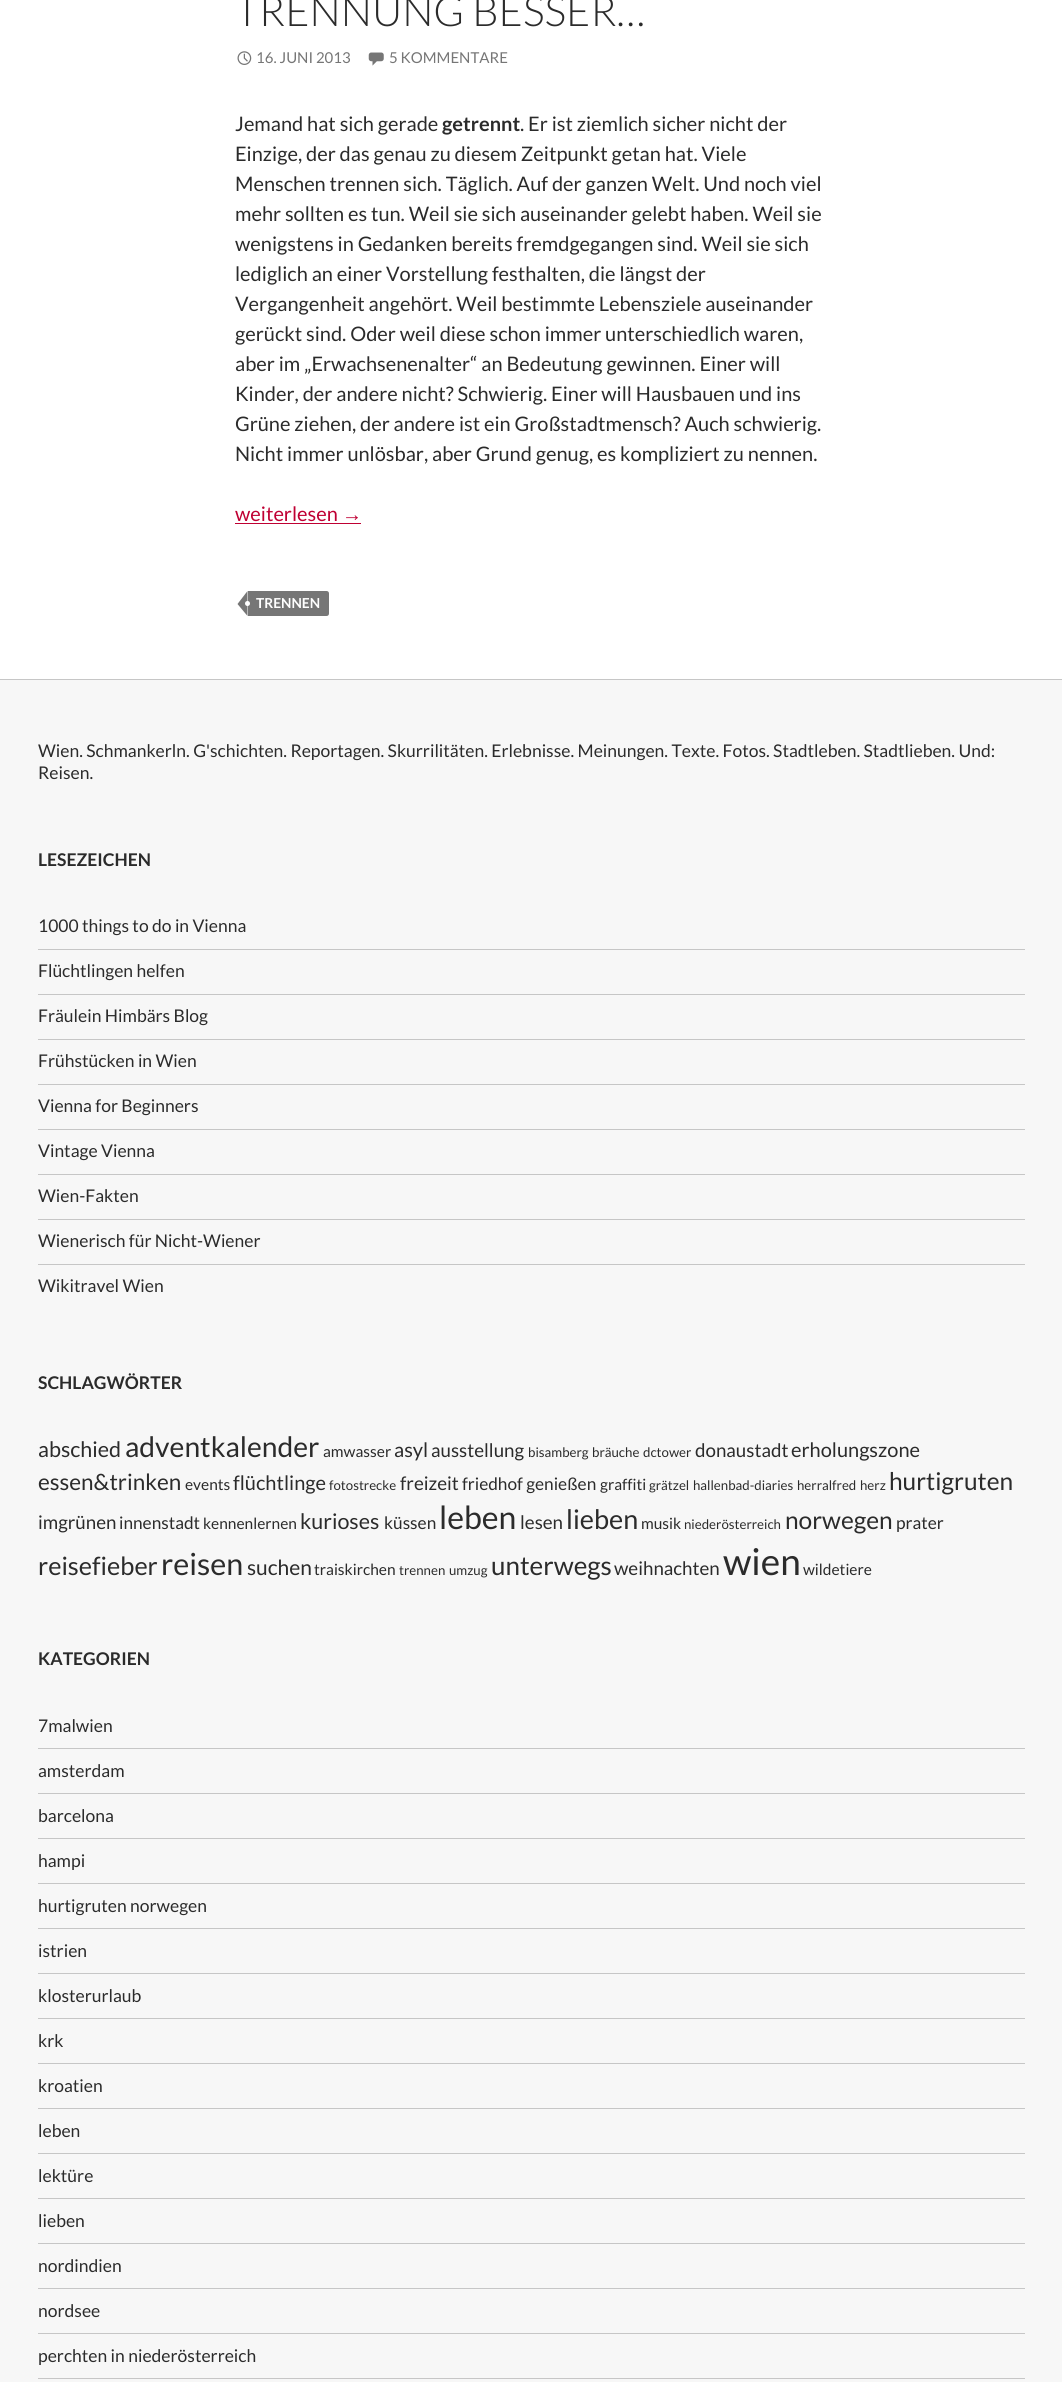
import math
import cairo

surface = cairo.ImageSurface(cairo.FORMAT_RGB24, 1062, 2382)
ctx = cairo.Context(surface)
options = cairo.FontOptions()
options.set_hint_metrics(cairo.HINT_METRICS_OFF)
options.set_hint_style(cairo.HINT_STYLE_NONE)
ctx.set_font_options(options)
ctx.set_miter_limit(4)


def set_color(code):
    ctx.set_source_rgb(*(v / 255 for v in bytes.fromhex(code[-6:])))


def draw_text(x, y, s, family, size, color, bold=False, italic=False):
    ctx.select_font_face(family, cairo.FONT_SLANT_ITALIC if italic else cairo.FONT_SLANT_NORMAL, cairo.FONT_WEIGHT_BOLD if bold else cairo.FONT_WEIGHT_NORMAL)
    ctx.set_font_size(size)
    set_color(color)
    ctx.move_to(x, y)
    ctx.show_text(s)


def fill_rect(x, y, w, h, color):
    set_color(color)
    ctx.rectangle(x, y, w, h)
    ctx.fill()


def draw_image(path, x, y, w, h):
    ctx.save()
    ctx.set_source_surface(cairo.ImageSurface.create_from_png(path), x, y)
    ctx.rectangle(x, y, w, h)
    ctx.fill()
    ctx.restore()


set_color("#ffffff")
ctx.paint()
draw_text(235, 26, "TRENNUNG BESSER…", "Lato Light", 41.25, "#2b2b2b")
draw_image("assets/img1.png", 237, 51, 15, 14)
draw_text(256, 63, "16. JUNI 2013", "Lato", 15, "#767676")
draw_image("assets/img2.png", 368, 52, 16, 14)
draw_text(389, 63, "5 KOMMENTARE", "Lato", 15, "#767676")
draw_text(235, 131, "Jemand hat sich gerade", "Lato", 20, "#2b2b2b")
draw_text(442, 131, "getrennt", "Lato", 20, "#2b2b2b", bold=True)
draw_text(520, 131, ". Er ist ziemlich sicher nicht der", "Lato", 20, "#2b2b2b")
draw_text(235, 161, "Einzige, der das genau zu diesem Zeitpunkt getan hat. Viele", "Lato", 20, "#2b2b2b")
draw_text(235, 191, "Menschen trennen sich. Täglich. Auf der ganzen Welt. Und noch viel", "Lato", 20, "#2b2b2b")
draw_text(235, 221, "mehr sollten es tun. Weil sie sich auseinander gelebt haben. Weil sie", "Lato", 20, "#2b2b2b")
draw_text(235, 251, "wenigstens in Gedanken bereits fremdgegangen sind. Weil sie sich", "Lato", 20, "#2b2b2b")
draw_text(235, 281, "lediglich an einer Vorstellung festhalten, die längst der", "Lato", 20, "#2b2b2b")
draw_text(235, 311, "Vergangenheit angehört. Weil bestimmte Lebensziele auseinander", "Lato", 20, "#2b2b2b")
draw_text(235, 341, "gerückt sind. Oder weil diese schon immer unterschiedlich waren,", "Lato", 20, "#2b2b2b")
draw_text(235, 371, "aber im „Erwachsenenalter“ an Bedeutung gewinnen. Einer will", "Lato", 20, "#2b2b2b")
draw_text(235, 401, "Kinder, der andere nicht? Schwierig. Einer will Hausbauen und ins", "Lato", 20, "#2b2b2b")
draw_text(235, 431, "Grüne ziehen, der andere ist ein Großstadtmensch? Auch schwierig.", "Lato", 20, "#2b2b2b")
draw_text(235, 461, "Nicht immer unlösbar, aber Grund genug, es kompliziert zu nennen.", "Lato", 20, "#2b2b2b")
draw_text(235, 521, "weiterlesen", "Lato", 20, "#bf0033")
draw_text(342, 521, "→", "Liberation Sans", 20, "#bf0033")
fill_rect(235, 523, 126, 1, "#bf0033")
set_color("#767676")
ctx.new_path()
ctx.move_to(248, 591)
ctx.line_to(326.5, 591)
ctx.curve_to(328, 591, 329, 592, 329, 593.5)
ctx.line_to(329, 613.5)
ctx.curve_to(329, 615, 328, 616, 326.5, 616)
ctx.line_to(248, 616)
ctx.close_path()
ctx.fill()
ctx.new_path()
ctx.move_to(247.5, 591)
ctx.line_to(247.5, 616)
ctx.line_to(237.5, 604)
ctx.close_path()
ctx.fill()
draw_text(256, 608, "TRENNEN", "Lato", 13.75, "#ffffff", bold=True)
ctx.new_path()
ctx.arc(247.5, 603.5, 2.5, 0, 2 * math.pi)
ctx.fill()
fill_rect(0, 680, 1062, 1702, "#f7f7f7")
fill_rect(0, 679, 1062, 1, "#c6c6c6")
draw_text(38, 757, "Wien. Schmankerln. G'schichten. Reportagen. Skurrilitäten. Erlebnisse. Meinungen. Texte. Fotos. Stadtleben. Stadtlieben. Und:", "Lato", 17.5, "#2b2b2b")
draw_text(38, 779, "Reisen.", "Lato", 17.5, "#2b2b2b")
draw_text(38, 866, "LESEZEICHEN", "Lato", 17.5, "#2b2b2b", bold=True)
draw_text(38, 932, "1000 things to do in Vienna", "Lato", 17.5, "#2b2b2b")
fill_rect(38, 949, 987, 1, "#c6c6c6")
draw_text(38, 977, "Flüchtlingen helfen", "Lato", 17.5, "#2b2b2b")
fill_rect(38, 994, 987, 1, "#c6c6c6")
draw_text(38, 1022, "Fräulein Himbärs Blog", "Lato", 17.5, "#2b2b2b")
fill_rect(38, 1039, 987, 1, "#c6c6c6")
draw_text(38, 1067, "Frühstücken in Wien", "Lato", 17.5, "#2b2b2b")
fill_rect(38, 1084, 987, 1, "#c6c6c6")
draw_text(38, 1112, "Vienna for Beginners", "Lato", 17.5, "#2b2b2b")
fill_rect(38, 1129, 987, 1, "#c6c6c6")
draw_text(38, 1157, "Vintage Vienna", "Lato", 17.5, "#2b2b2b")
fill_rect(38, 1174, 987, 1, "#c6c6c6")
draw_text(38, 1202, "Wien-Fakten", "Lato", 17.5, "#2b2b2b")
fill_rect(38, 1219, 987, 1, "#c6c6c6")
draw_text(38, 1247, "Wienerisch für Nicht-Wiener", "Lato", 17.5, "#2b2b2b")
fill_rect(38, 1264, 987, 1, "#c6c6c6")
draw_text(38, 1292, "Wikitravel Wien", "Lato", 17.5, "#2b2b2b")
draw_text(38, 1389, "SCHLAGWÖRTER", "Lato", 17.5, "#2b2b2b", bold=True)
draw_text(38, 1457, "abschied", "Lato", 21.5, "#2b2b2b")
draw_text(125, 1457, "adventkalender", "Lato", 28.25, "#2b2b2b")
draw_text(323, 1457, "amwasser", "Lato", 15.5, "#2b2b2b")
draw_text(394, 1457, "asyl", "Lato", 20, "#2b2b2b")
draw_text(431, 1457, "ausstellung", "Lato", 18.75, "#2b2b2b")
draw_text(528, 1457, "bisamberg", "Lato", 13.25, "#2b2b2b")
draw_text(592, 1457, "bräuche", "Lato", 13.25, "#2b2b2b")
draw_text(643, 1457, "dctower", "Lato", 13.25, "#2b2b2b")
draw_text(695, 1457, "donaustadt", "Lato", 18.75, "#2b2b2b")
draw_text(791, 1457, "erholungszone", "Lato", 20, "#2b2b2b")
draw_text(38, 1490, "essen&trinken", "Lato", 22.5, "#2b2b2b")
draw_text(185, 1490, "events", "Lato", 15.5, "#2b2b2b")
draw_text(233, 1490, "flüchtlinge", "Lato", 20, "#2b2b2b")
draw_text(329, 1490, "fotostrecke", "Lato", 13.25, "#2b2b2b")
draw_text(400, 1490, "freizeit", "Lato", 18.75, "#2b2b2b")
draw_text(462, 1490, "friedhof genießen", "Lato", 17.25, "#2b2b2b")
draw_text(600, 1490, "graffiti", "Lato", 15.5, "#2b2b2b")
draw_text(649, 1490, "grätzel", "Lato", 13.25, "#2b2b2b")
draw_text(693, 1490, "hallenbad-diaries", "Lato", 13.25, "#2b2b2b")
draw_text(797, 1490, "herralfred", "Lato", 13.25, "#2b2b2b")
draw_text(860, 1490, "herz", "Lato", 13.25, "#2b2b2b")
draw_text(889, 1490, "hurtigruten", "Lato", 24.5, "#2b2b2b")
draw_text(38, 1529, "imgrünen", "Lato", 18.75, "#2b2b2b")
draw_text(119, 1529, "innenstadt", "Lato", 17.25, "#2b2b2b")
draw_text(203, 1529, "kennenlernen", "Lato", 15.5, "#2b2b2b")
draw_text(300, 1529, "kurioses", "Lato", 21.5, "#2b2b2b")
draw_text(384, 1529, "küssen", "Lato", 17.25, "#2b2b2b")
draw_text(439, 1529, "leben", "Lato", 32, "#2b2b2b")
draw_text(520, 1529, "lesen", "Lato", 18.75, "#2b2b2b")
draw_text(566, 1529, "lieben", "Lato", 27, "#2b2b2b")
draw_text(641, 1529, "musik", "Lato", 15.5, "#2b2b2b")
draw_text(684, 1529, "niederösterreich", "Lato", 13.25, "#2b2b2b")
draw_text(785, 1529, "norwegen", "Lato", 24.5, "#2b2b2b")
draw_text(896, 1529, "prater", "Lato", 17.25, "#2b2b2b")
draw_text(38, 1575, "reisefieber", "Lato", 25.25, "#2b2b2b")
draw_text(161, 1575, "reisen", "Lato", 30.5, "#2b2b2b")
draw_text(247, 1575, "suchen", "Lato", 21, "#2b2b2b")
draw_text(314, 1575, "traiskirchen", "Lato", 15.5, "#2b2b2b")
draw_text(399, 1575, "trennen", "Lato", 13.25, "#2b2b2b")
draw_text(449, 1575, "umzug", "Lato", 13.25, "#2b2b2b")
draw_text(491, 1575, "unterwegs", "Lato", 26, "#2b2b2b")
draw_text(614, 1575, "weihnachten", "Lato", 18.75, "#2b2b2b")
draw_text(723, 1575, "wien", "Lato", 37, "#2b2b2b")
draw_text(803, 1575, "wildetiere", "Lato", 15.5, "#2b2b2b")
draw_text(38, 1665, "KATEGORIEN", "Lato", 17.5, "#2b2b2b", bold=True)
draw_text(38, 1732, "7malwien", "Lato", 17.5, "#2b2b2b")
fill_rect(38, 1748, 987, 1, "#c6c6c6")
draw_text(38, 1777, "amsterdam", "Lato", 17.5, "#2b2b2b")
fill_rect(38, 1793, 987, 1, "#c6c6c6")
draw_text(38, 1822, "barcelona", "Lato", 17.5, "#2b2b2b")
fill_rect(38, 1838, 987, 1, "#c6c6c6")
draw_text(38, 1867, "hampi", "Lato", 17.5, "#2b2b2b")
fill_rect(38, 1883, 987, 1, "#c6c6c6")
draw_text(38, 1912, "hurtigruten norwegen", "Lato", 17.5, "#2b2b2b")
fill_rect(38, 1928, 987, 1, "#c6c6c6")
draw_text(38, 1957, "istrien", "Lato", 17.5, "#2b2b2b")
fill_rect(38, 1973, 987, 1, "#c6c6c6")
draw_text(38, 2002, "klosterurlaub", "Lato", 17.5, "#2b2b2b")
fill_rect(38, 2018, 987, 1, "#c6c6c6")
draw_text(38, 2047, "krk", "Lato", 17.5, "#2b2b2b")
fill_rect(38, 2063, 987, 1, "#c6c6c6")
draw_text(38, 2092, "kroatien", "Lato", 17.5, "#2b2b2b")
fill_rect(38, 2108, 987, 1, "#c6c6c6")
draw_text(38, 2137, "leben", "Lato", 17.5, "#2b2b2b")
fill_rect(38, 2153, 987, 1, "#c6c6c6")
draw_text(38, 2182, "lektüre", "Lato", 17.5, "#2b2b2b")
fill_rect(38, 2198, 987, 1, "#c6c6c6")
draw_text(38, 2227, "lieben", "Lato", 17.5, "#2b2b2b")
fill_rect(38, 2243, 987, 1, "#c6c6c6")
draw_text(38, 2272, "nordindien", "Lato", 17.5, "#2b2b2b")
fill_rect(38, 2288, 987, 1, "#c6c6c6")
draw_text(38, 2317, "nordsee", "Lato", 17.5, "#2b2b2b")
fill_rect(38, 2333, 987, 1, "#c6c6c6")
draw_text(38, 2362, "perchten in niederösterreich", "Lato", 17.5, "#2b2b2b")
fill_rect(38, 2378, 987, 1, "#c6c6c6")
surface.write_to_png("output.png")
